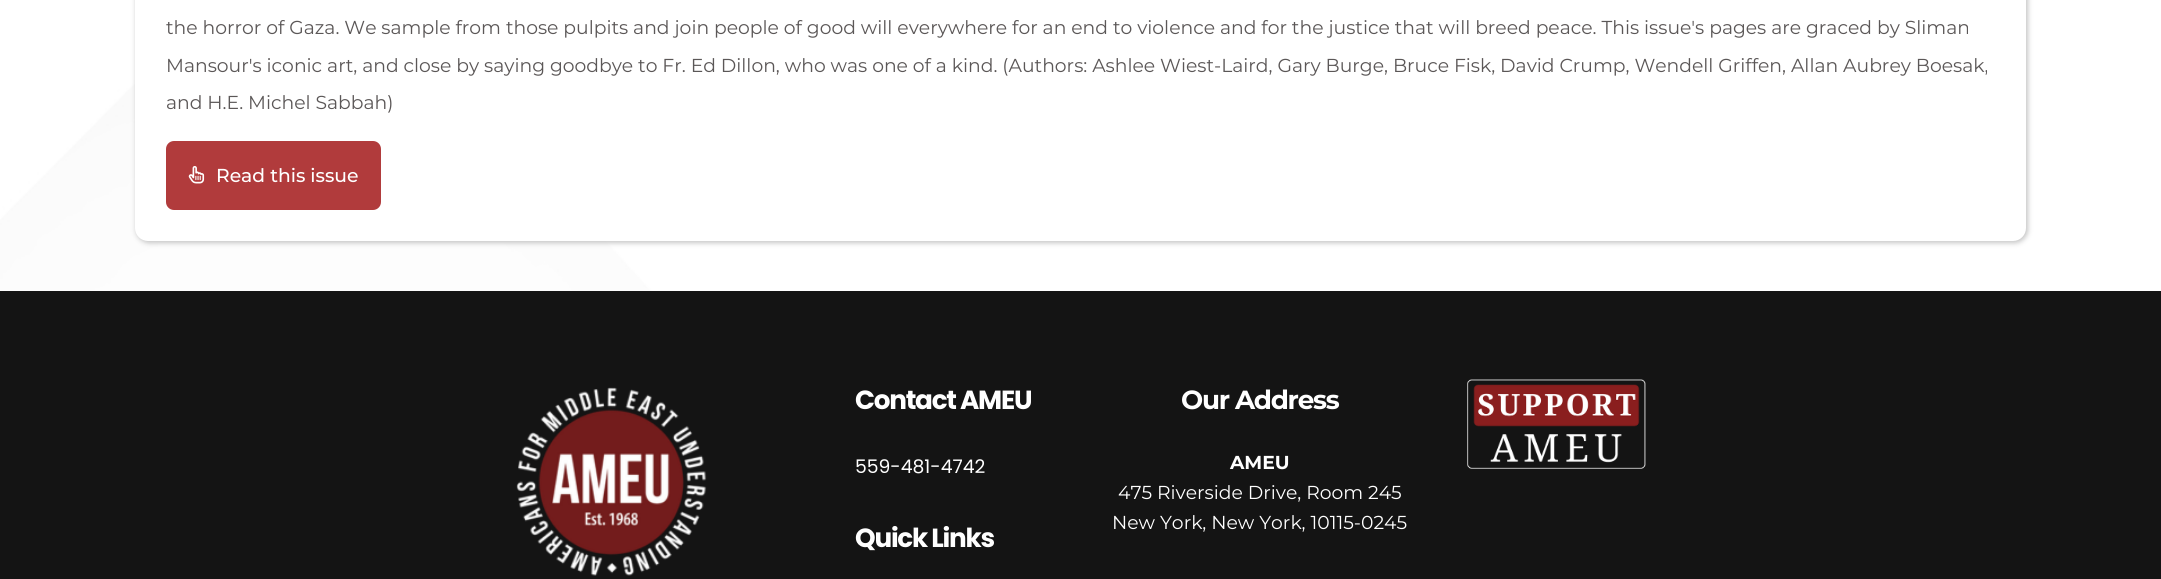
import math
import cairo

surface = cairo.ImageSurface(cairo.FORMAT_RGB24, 2161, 579)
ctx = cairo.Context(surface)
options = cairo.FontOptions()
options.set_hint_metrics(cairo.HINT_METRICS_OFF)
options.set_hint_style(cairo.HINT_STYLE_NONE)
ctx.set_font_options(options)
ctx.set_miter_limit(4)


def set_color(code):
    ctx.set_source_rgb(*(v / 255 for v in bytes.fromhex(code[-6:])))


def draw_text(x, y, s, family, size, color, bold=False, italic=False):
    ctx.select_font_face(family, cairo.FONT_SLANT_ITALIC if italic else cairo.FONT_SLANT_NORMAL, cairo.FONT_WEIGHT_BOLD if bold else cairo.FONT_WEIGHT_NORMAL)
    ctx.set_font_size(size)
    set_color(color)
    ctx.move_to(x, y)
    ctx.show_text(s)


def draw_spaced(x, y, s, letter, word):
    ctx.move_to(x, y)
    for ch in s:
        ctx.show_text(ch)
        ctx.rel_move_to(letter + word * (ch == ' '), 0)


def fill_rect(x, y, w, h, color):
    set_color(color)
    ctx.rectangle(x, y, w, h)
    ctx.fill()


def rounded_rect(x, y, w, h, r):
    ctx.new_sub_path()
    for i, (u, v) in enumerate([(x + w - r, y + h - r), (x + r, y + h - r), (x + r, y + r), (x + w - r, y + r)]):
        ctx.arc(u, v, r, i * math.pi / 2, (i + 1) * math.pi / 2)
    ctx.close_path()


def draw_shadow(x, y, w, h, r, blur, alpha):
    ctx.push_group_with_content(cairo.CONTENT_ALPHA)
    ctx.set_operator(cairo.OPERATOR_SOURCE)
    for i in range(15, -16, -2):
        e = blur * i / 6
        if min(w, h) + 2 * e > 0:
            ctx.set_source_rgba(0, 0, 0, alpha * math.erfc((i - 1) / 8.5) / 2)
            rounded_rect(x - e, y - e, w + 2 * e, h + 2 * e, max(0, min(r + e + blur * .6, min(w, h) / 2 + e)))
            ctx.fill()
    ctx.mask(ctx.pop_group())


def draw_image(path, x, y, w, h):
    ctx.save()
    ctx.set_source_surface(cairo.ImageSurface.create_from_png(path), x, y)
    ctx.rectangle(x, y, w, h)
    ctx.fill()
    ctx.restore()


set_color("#ffffff")
ctx.paint()
draw_image("assets/img1.png", 0, 0, 2161, 291)
set_color("#c4c4c4")
draw_shadow(136, -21, 1892, 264, 13, 2.5, 1)
set_color("#ffffff")
rounded_rect(135, -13, 1891, 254, 13)
ctx.fill()
draw_text(166, 34, "the horror of Gaza. We sample from those pulpits and join people of good will everywhere for an end to violence and for the justice that will breed peace. This issue's pages are graced by Sliman", "Montserrat", 18.75, "#5b5757")
draw_text(166, 72, "Mansour's iconic art, and close by saying goodbye to Fr. Ed Dillon, who was one of a kind. (Authors: Ashlee Wiest-Laird, Gary Burge, Bruce Fisk, David Crump, Wendell Griffen, Allan Aubrey Boesak,", "Montserrat", 18.75, "#5b5757")
draw_text(166, 109, "and H.E. Michel Sabbah)", "Montserrat", 18.75, "#5b5757")
set_color("#b13b3c")
rounded_rect(166, 141, 215, 69, 8)
ctx.fill()
draw_image("assets/img2.png", 188, 166, 17, 18)
draw_text(216, 182, "Read this issue", "Montserrat Medium", 18.75, "#ffffff")
fill_rect(0, 291, 2161, 288, "#141414")
draw_image("assets/img3.png", 516, 387, 191, 189)
ctx.select_font_face("Poppins", cairo.FONT_SLANT_NORMAL, cairo.FONT_WEIGHT_BOLD)
ctx.set_font_size(26.25)
set_color("#ffffff")
draw_spaced(855, 409, "Contact AMEU", -1.25, 0)
draw_text(855, 473, "559-481-4742", "Poppins", 18.75, "#ffffff")
ctx.select_font_face("Poppins", cairo.FONT_SLANT_NORMAL, cairo.FONT_WEIGHT_BOLD)
ctx.set_font_size(26.25)
draw_spaced(855, 547, "Quick Links", -1.25, 0)
ctx.select_font_face("Montserrat", cairo.FONT_SLANT_NORMAL, cairo.FONT_WEIGHT_BOLD)
draw_spaced(1181, 409, "Our Address", -1.25, 0)
draw_text(1230, 469, "AMEU", "Montserrat", 18.75, "#ffffff", bold=True)
draw_text(1118, 499, "475 Riverside Drive, Room 245", "Montserrat", 18.75, "#ffffff")
draw_text(1112, 529, "New York, New York, 10115-0245", "Montserrat", 18.75, "#ffffff")
draw_image("assets/img4.png", 1467, 379, 179, 90)
surface.write_to_png("output.png")
